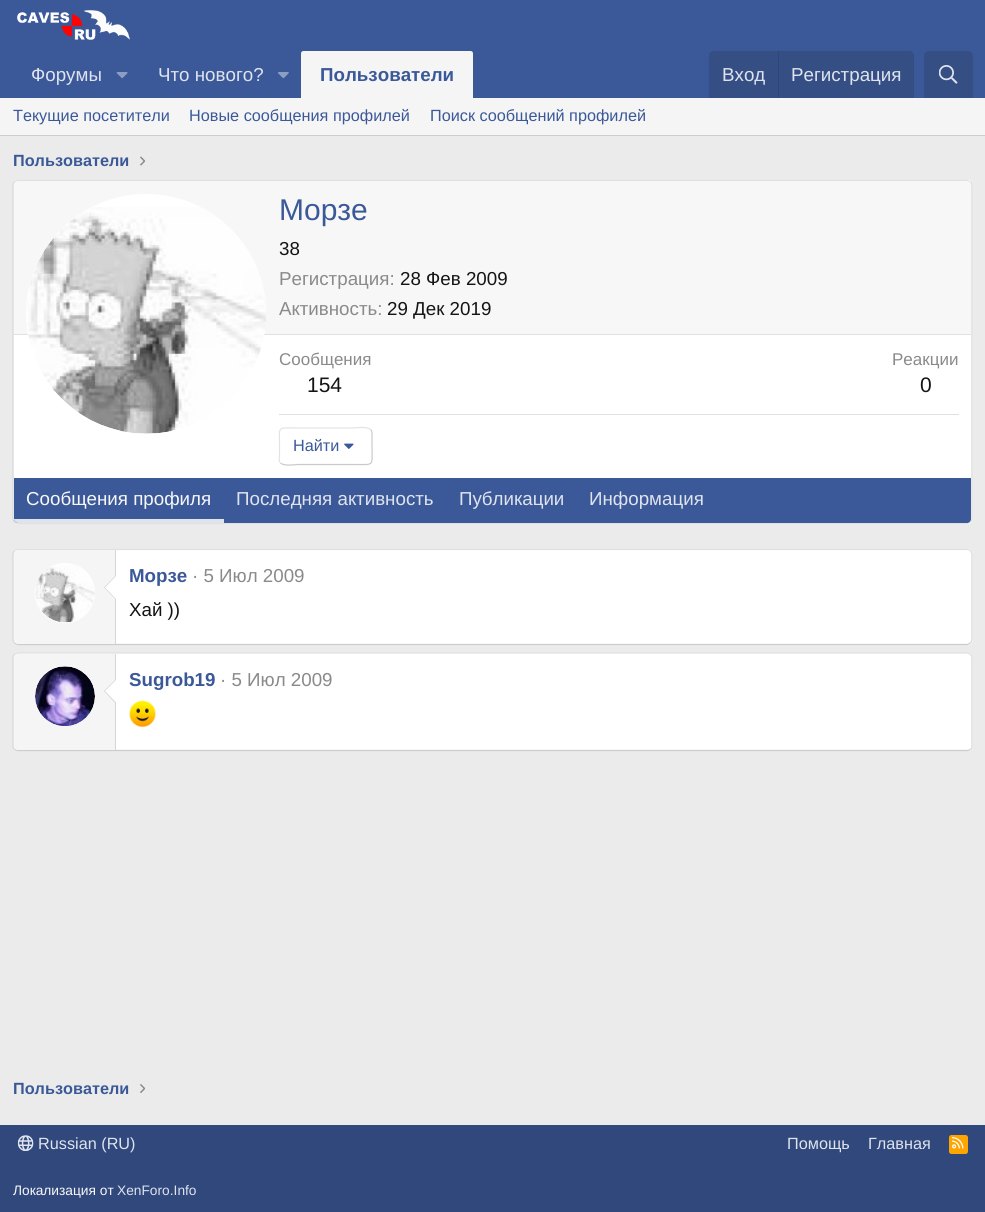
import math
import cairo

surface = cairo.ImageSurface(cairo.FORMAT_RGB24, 985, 1212)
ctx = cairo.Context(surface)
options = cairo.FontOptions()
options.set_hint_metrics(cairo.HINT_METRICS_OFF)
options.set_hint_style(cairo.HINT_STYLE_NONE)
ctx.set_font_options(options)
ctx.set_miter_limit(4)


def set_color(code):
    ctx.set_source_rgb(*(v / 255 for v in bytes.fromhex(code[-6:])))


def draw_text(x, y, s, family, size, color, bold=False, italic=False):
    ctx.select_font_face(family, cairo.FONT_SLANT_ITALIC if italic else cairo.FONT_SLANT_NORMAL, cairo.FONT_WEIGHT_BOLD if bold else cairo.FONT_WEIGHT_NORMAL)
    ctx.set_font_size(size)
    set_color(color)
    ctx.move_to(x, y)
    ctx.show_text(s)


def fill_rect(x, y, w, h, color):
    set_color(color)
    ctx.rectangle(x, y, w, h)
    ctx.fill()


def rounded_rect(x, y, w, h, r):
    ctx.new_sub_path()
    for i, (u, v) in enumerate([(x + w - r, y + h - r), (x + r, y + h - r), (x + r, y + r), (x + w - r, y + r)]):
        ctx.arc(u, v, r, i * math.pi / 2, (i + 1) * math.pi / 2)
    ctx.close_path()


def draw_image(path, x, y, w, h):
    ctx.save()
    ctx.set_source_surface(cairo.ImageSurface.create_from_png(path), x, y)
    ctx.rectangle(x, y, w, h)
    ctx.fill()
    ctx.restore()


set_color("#ebebeb")
ctx.paint()
fill_rect(0, 0, 985, 98, "#3b5998")
draw_image("assets/img1.png", 17, 10, 113, 30)
draw_text(31, 81, "Форумы", "Liberation Sans", 18.75, "#dfe3ee")
draw_image("assets/img2.png", 116, 72, 12, 7)
draw_text(158, 81, "Что нового?", "Liberation Sans", 18.75, "#dfe3ee")
draw_image("assets/img3.png", 278, 72, 11, 7)
set_color("#f5f5f5")
ctx.new_path()
ctx.move_to(303.5, 51)
ctx.line_to(470.5, 51)
ctx.curve_to(472, 51, 473, 52, 473, 53.5)
ctx.line_to(473, 98)
ctx.line_to(301, 98)
ctx.line_to(301, 53.5)
ctx.curve_to(301, 52, 302, 51, 303.5, 51)
ctx.close_path()
ctx.fill()
draw_text(320, 81, "Пользователи", "Liberation Sans", 18.75, "#3b5998", bold=True)
set_color("#354f84")
ctx.new_path()
ctx.move_to(714, 51)
ctx.line_to(909, 51)
ctx.curve_to(912, 51, 914, 53, 914, 56)
ctx.line_to(914, 98)
ctx.line_to(709, 98)
ctx.line_to(709, 56)
ctx.curve_to(709, 53, 711, 51, 714, 51)
ctx.close_path()
ctx.fill()
draw_text(722, 81, "Вход", "Liberation Sans", 18.75, "#dfe3ee")
fill_rect(778, 51, 1, 47, "#304673")
draw_text(791, 81, "Регистрация", "Liberation Sans", 18.75, "#dfe3ee")
set_color("#354f84")
ctx.new_path()
ctx.move_to(929, 51)
ctx.line_to(968, 51)
ctx.curve_to(971, 51, 973, 53, 973, 56)
ctx.line_to(973, 98)
ctx.line_to(924, 98)
ctx.line_to(924, 56)
ctx.curve_to(924, 53, 926, 51, 929, 51)
ctx.close_path()
ctx.fill()
draw_image("assets/img4.png", 939, 65, 19, 19)
fill_rect(0, 98, 985, 37, "#f5f5f5")
fill_rect(0, 135, 985, 1, "#cccccc")
draw_text(13, 121, "Текущие посетители", "Liberation Sans", 16.25, "#3b5998")
draw_text(189, 121, "Новые сообщения профилей", "Liberation Sans", 16.25, "#3b5998")
draw_text(430, 121, "Поиск сообщений профилей", "Liberation Sans", 16.25, "#3b5998")
draw_text(13, 166, "Пользователи", "Liberation Sans", 16.25, "#3b5998", bold=True)
draw_image("assets/img5.png", 140, 156, 5, 10)
set_color("#ffffff")
rounded_rect(13, 180, 960, 344, 5)
ctx.fill()
ctx.new_path()
ctx.move_to(14.5, 182)
ctx.line_to(17.5, 180.5)
ctx.line_to(967.5, 180.5)
ctx.line_to(970.5, 182)
set_color("#e0e0e0")
ctx.set_line_width(1.2)
ctx.stroke()
ctx.new_path()
ctx.move_to(970.5, 182)
ctx.curve_to(971.5, 182.5, 972, 184, 972, 185)
ctx.line_to(972, 519)
ctx.curve_to(972, 520, 971.5, 521, 970.5, 522)
set_color("#d6d6d6")
ctx.stroke()
ctx.new_path()
ctx.move_to(970.5, 522)
ctx.line_to(967.5, 523)
ctx.line_to(17.5, 523)
ctx.line_to(14.5, 522)
set_color("#cccccc")
ctx.stroke()
ctx.new_path()
ctx.move_to(14.5, 522)
ctx.curve_to(13.5, 521, 13, 520, 13, 519)
ctx.line_to(13, 185)
ctx.curve_to(13, 184, 13.5, 182.5, 14.5, 182)
set_color("#d6d6d6")
ctx.stroke()
set_color("#f7f7f7")
ctx.new_path()
ctx.move_to(18, 181)
ctx.line_to(967, 181)
ctx.curve_to(969, 181, 971, 183, 971, 185)
ctx.line_to(971, 335)
ctx.line_to(14, 335)
ctx.line_to(14, 185)
ctx.curve_to(14, 183, 16, 181, 18, 181)
ctx.close_path()
ctx.fill()
fill_rect(14, 334, 957, 1, "#e0e0e0")
set_color("#ffffff")
ctx.arc(146, 314, 120, 0, 2 * math.pi)
ctx.fill()
draw_image("assets/img6.png", 27, 207, 239, 227)
draw_text(279, 220, "Морзе", "Liberation Sans", 30, "#3b5998")
draw_text(279, 255, "38", "Liberation Sans", 18.75, "#141414")
draw_text(279, 285, "Регистрация:", "Liberation Sans", 18.75, "#8a8a8a")
draw_text(400, 285, "28 Фев 2009", "Liberation Sans", 18.75, "#141414")
draw_text(279, 315, "Активность:", "Liberation Sans", 18.75, "#8a8a8a")
draw_text(387, 315, "29 Дек 2019", "Liberation Sans", 18.75, "#141414")
draw_text(279, 365, "Сообщения", "Liberation Sans", 17, "#8a8a8a")
draw_text(307, 392, "154", "Liberation Sans", 21, "#141414")
draw_text(892, 365, "Реакции", "Liberation Sans", 17, "#8a8a8a")
draw_text(920, 392, "0", "Liberation Sans", 21, "#141414")
fill_rect(279, 414, 680, 1, "#e0e0e0")
ctx.new_path()
ctx.move_to(370.5, 429.5)
ctx.curve_to(372.5, 431.5, 372, 434.5, 372, 437)
ctx.line_to(372, 446)
ctx.curve_to(372, 467, 375, 464.5, 353.5, 464.5)
ctx.line_to(297.5, 464.5)
ctx.curve_to(297, 464.5, 284, 466.5, 280.5, 463)
set_color("#c9c9c9")
ctx.stroke()
ctx.new_path()
ctx.move_to(280.5, 463)
ctx.curve_to(278.5, 461, 279.5, 458, 279.5, 455.5)
ctx.line_to(279.5, 446)
ctx.curve_to(279.5, 425.5, 276.5, 428, 297.5, 428)
ctx.line_to(353.5, 428)
ctx.curve_to(354.5, 428, 367, 426, 370.5, 429.5)
set_color("#e3e3e3")
ctx.stroke()
draw_text(293, 451, "Найти", "Liberation Sans", 16.25, "#3b5998")
draw_image("assets/img7.png", 344, 443, 10, 6)
ctx.new_path()
ctx.move_to(14, 478)
ctx.line_to(971, 478)
ctx.line_to(971, 519)
ctx.curve_to(971, 521, 969, 523, 967, 523)
ctx.line_to(18, 523)
ctx.curve_to(16, 523, 14, 521, 14, 519)
ctx.close_path()
ctx.fill()
set_color("#dfe3ee")
ctx.new_path()
ctx.move_to(14, 519)
ctx.line_to(224, 519)
ctx.line_to(224, 523)
ctx.line_to(18, 523)
ctx.curve_to(16, 523, 14, 521, 14, 519)
ctx.close_path()
ctx.fill()
draw_text(26, 505, "Сообщения профиля", "Liberation Sans", 18.75, "#f7f7f7")
draw_text(236, 505, "Последняя активность", "Liberation Sans", 18.75, "#dfe3ee")
draw_text(459, 505, "Публикации", "Liberation Sans", 18.75, "#dfe3ee")
draw_text(589, 505, "Информация", "Liberation Sans", 18.75, "#dfe3ee")
set_color("#ffffff")
rounded_rect(13, 549, 960, 96, 5)
ctx.fill()
ctx.new_path()
ctx.move_to(14.5, 550.5)
ctx.line_to(17.5, 549.5)
ctx.line_to(967.5, 549.5)
ctx.line_to(970.5, 550.5)
set_color("#e0e0e0")
ctx.stroke()
ctx.new_path()
ctx.move_to(970.5, 550.5)
ctx.line_to(972, 553.5)
ctx.line_to(972, 640.5)
ctx.line_to(970.5, 643)
set_color("#d6d6d6")
ctx.stroke()
ctx.new_path()
ctx.move_to(970.5, 643)
ctx.line_to(967.5, 644.5)
ctx.line_to(17.5, 644.5)
ctx.line_to(14.5, 643)
set_color("#cccccc")
ctx.stroke()
ctx.new_path()
ctx.move_to(14.5, 643)
ctx.line_to(13, 640.5)
ctx.line_to(13, 553.5)
ctx.line_to(14.5, 550.5)
set_color("#d6d6d6")
ctx.stroke()
set_color("#f5f5f5")
ctx.new_path()
ctx.move_to(18, 550)
ctx.line_to(116, 550)
ctx.line_to(116, 644)
ctx.line_to(18, 644)
ctx.curve_to(16, 644, 14, 642, 14, 640)
ctx.line_to(14, 554)
ctx.curve_to(14, 552, 16, 550, 18, 550)
ctx.close_path()
ctx.fill()
fill_rect(115, 550, 1, 94, "#d6d6d6")
set_color("#ffffff")
ctx.arc(65, 593, 30, 0, 2 * math.pi)
ctx.fill()
draw_image("assets/img8.png", 35, 565, 60, 58)
set_color("#d6d6d6")
ctx.new_path()
ctx.move_to(116, 575)
ctx.line_to(116, 600)
ctx.line_to(104, 587.5)
ctx.close_path()
ctx.fill()
set_color("#ffffff")
ctx.new_path()
ctx.move_to(116, 576)
ctx.line_to(116, 599)
ctx.line_to(105, 587.5)
ctx.close_path()
ctx.fill()
draw_text(129, 582, "Морзе", "Liberation Sans", 18.75, "#3b5998", bold=True)
draw_text(192, 582, "· 5 Июл 2009", "Liberation Sans", 18.75, "#8a8a8a")
draw_text(129, 616, "Хай ))", "Liberation Sans", 18.75, "#141414")
set_color("#ffffff")
rounded_rect(13, 653, 960, 98, 5)
ctx.fill()
ctx.new_path()
ctx.move_to(14.5, 654.5)
ctx.line_to(17.5, 653)
ctx.line_to(967.5, 653)
ctx.line_to(970.5, 654.5)
set_color("#e0e0e0")
ctx.stroke()
ctx.new_path()
ctx.move_to(970.5, 654.5)
ctx.curve_to(971.5, 655, 972, 656.5, 972, 657.5)
ctx.line_to(972, 746)
ctx.curve_to(972, 747.5, 971.5, 748.5, 970.5, 749.5)
set_color("#d6d6d6")
ctx.stroke()
ctx.new_path()
ctx.move_to(970.5, 749.5)
ctx.line_to(967.5, 750.5)
ctx.line_to(17.5, 750.5)
ctx.line_to(14.5, 749.5)
set_color("#cccccc")
ctx.stroke()
ctx.new_path()
ctx.move_to(14.5, 749.5)
ctx.curve_to(13.5, 748.5, 13, 747.5, 13, 746)
ctx.line_to(13, 657.5)
ctx.curve_to(13, 656.5, 13.5, 655, 14.5, 654.5)
set_color("#d6d6d6")
ctx.stroke()
set_color("#f5f5f5")
ctx.new_path()
ctx.move_to(18, 654)
ctx.line_to(116, 654)
ctx.line_to(116, 750)
ctx.line_to(18, 750)
ctx.curve_to(16, 750, 14, 748, 14, 746)
ctx.line_to(14, 658)
ctx.curve_to(14, 656, 16, 654, 18, 654)
ctx.close_path()
ctx.fill()
fill_rect(115, 654, 1, 96, "#d6d6d6")
set_color("#ffffff")
ctx.arc(65, 696, 30, 0, 2 * math.pi)
ctx.fill()
draw_image("assets/img9.png", 35, 666, 60, 60)
set_color("#d6d6d6")
ctx.new_path()
ctx.move_to(116, 679)
ctx.line_to(116, 704)
ctx.line_to(104, 691)
ctx.close_path()
ctx.fill()
set_color("#ffffff")
ctx.new_path()
ctx.move_to(116, 680)
ctx.line_to(116, 702.5)
ctx.line_to(105, 691)
ctx.close_path()
ctx.fill()
draw_text(129, 686, "Sugrob19", "Liberation Sans", 18.75, "#3b5998", bold=True)
draw_text(220, 686, "· 5 Июл 2009", "Liberation Sans", 18.75, "#8a8a8a")
draw_image("assets/img10.png", 129, 700, 27, 27)
draw_text(13, 1094, "Пользователи", "Liberation Sans", 16.25, "#3b5998", bold=True)
draw_image("assets/img11.png", 140, 1084, 5, 9)
fill_rect(0, 1125, 985, 87, "#30487b")
draw_image("assets/img12.png", 17, 1135, 17, 16)
draw_text(38, 1149, "Russian (RU)", "Liberation Sans", 16.25, "#dfe3ee")
draw_text(787, 1149, "Помощь", "Liberation Sans", 16.25, "#dfe3ee")
draw_text(868, 1149, "Главная", "Liberation Sans", 16.25, "#dfe3ee")
set_color("#ffa500")
rounded_rect(949, 1135, 19, 19, 2.5)
ctx.fill()
draw_image("assets/img13.png", 952, 1137, 12, 12)
draw_text(13, 1195, "Локализация от", "Liberation Sans", 13.75, "#f7f7f7")
draw_text(117, 1195, "XenForo.Info", "Liberation Sans", 13.75, "#dfe3ee")
surface.write_to_png("output.png")
